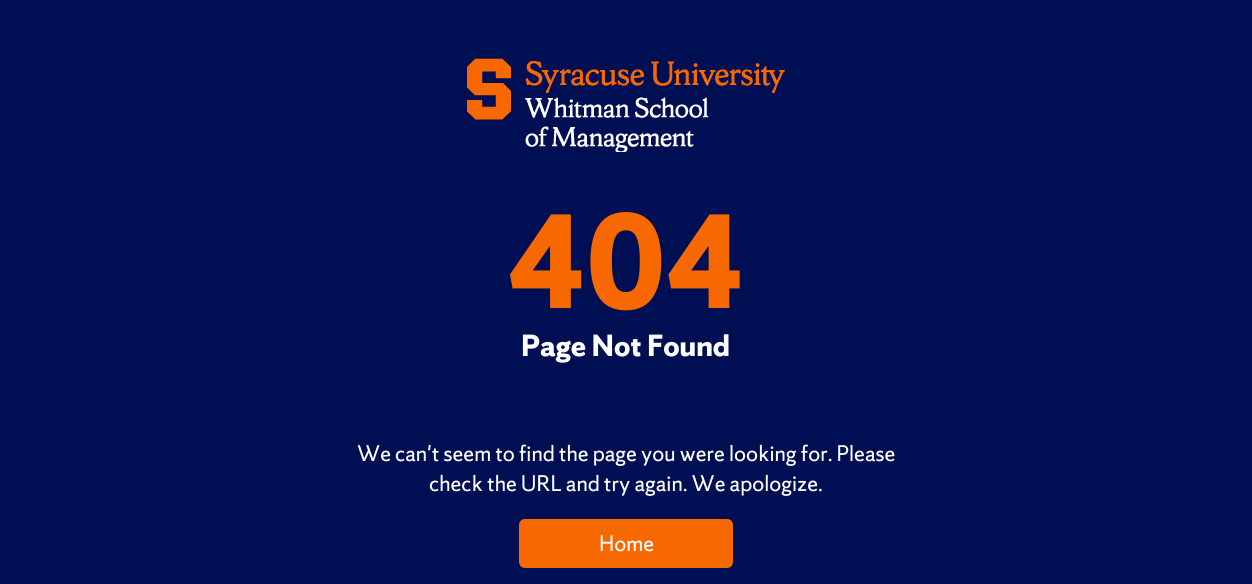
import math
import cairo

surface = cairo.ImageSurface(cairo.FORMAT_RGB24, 1252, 584)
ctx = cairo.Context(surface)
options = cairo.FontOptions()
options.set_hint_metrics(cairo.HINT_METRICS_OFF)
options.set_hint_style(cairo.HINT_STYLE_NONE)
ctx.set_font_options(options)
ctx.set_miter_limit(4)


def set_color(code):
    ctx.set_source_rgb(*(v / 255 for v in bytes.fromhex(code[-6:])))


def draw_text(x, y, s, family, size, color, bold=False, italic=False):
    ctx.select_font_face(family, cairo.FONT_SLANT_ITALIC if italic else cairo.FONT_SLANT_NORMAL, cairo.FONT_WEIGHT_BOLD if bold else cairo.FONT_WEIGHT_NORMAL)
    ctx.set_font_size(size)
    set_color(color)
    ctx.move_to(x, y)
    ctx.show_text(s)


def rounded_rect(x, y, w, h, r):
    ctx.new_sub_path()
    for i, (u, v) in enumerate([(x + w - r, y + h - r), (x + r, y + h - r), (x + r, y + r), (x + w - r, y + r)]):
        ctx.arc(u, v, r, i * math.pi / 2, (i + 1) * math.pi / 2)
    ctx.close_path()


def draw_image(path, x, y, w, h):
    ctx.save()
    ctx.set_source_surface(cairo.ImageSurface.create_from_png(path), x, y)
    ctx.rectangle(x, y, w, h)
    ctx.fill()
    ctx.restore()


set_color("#000e54")
ctx.paint()
draw_image("assets/img1.png", 467, 58, 318, 94)
draw_text(507, 308, "404", "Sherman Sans", 120, "#f76900", bold=True)
draw_text(521, 356, "Page Not Found", "Sherman Sans", 27, "#ffffff", bold=True)
draw_text(357, 461, "We can't seem to find the page you were looking for. Please", "Sherman Sans", 20, "#ffffff")
draw_text(429, 491, "check the URL and try again. We apologize.", "Sherman Sans", 20, "#ffffff")
set_color("#f76900")
rounded_rect(519, 519, 214, 49, 6)
ctx.fill()
draw_text(599, 551, "Home", "Sherman Sans", 20, "#ffffff")
surface.write_to_png("output.png")
